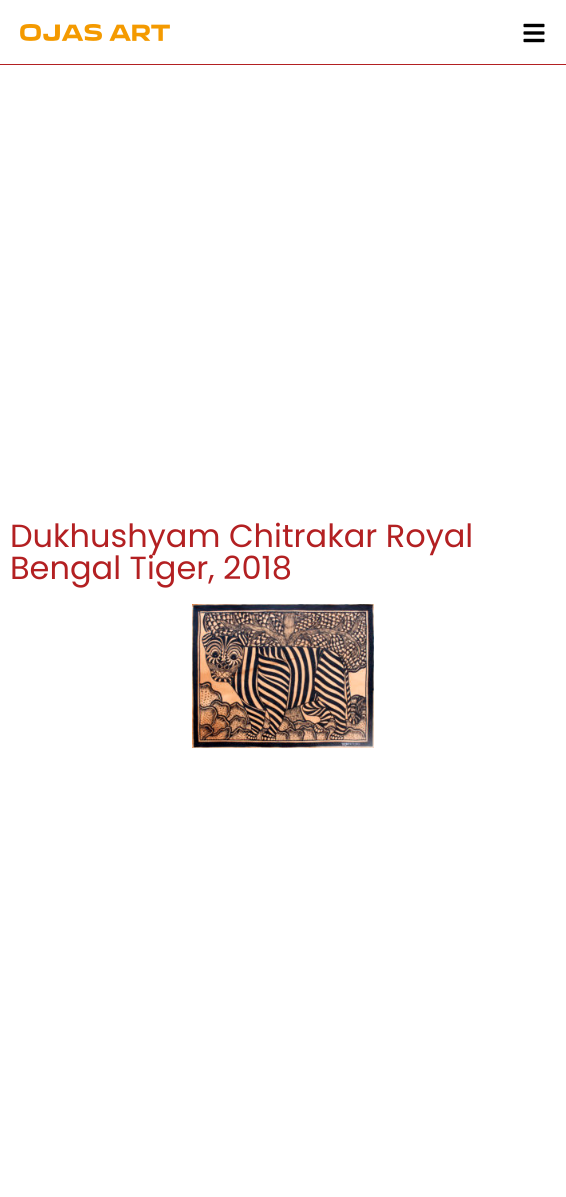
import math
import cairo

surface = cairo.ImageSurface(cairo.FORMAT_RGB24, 566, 1197)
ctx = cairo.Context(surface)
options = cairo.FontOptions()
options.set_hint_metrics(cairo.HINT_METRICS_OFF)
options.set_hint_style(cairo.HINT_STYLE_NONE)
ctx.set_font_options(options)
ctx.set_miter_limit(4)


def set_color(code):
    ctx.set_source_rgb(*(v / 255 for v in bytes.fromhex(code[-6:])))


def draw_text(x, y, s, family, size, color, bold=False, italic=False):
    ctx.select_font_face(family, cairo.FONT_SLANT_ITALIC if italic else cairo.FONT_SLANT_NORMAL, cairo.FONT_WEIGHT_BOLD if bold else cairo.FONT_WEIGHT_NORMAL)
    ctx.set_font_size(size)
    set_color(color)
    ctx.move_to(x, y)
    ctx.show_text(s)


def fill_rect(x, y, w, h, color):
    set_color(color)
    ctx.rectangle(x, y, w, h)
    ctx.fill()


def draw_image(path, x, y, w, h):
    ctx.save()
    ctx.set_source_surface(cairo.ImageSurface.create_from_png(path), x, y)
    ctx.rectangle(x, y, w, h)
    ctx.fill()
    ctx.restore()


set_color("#ffffff")
ctx.paint()
fill_rect(0, 64, 566, 1, "#b32022")
draw_image("assets/img1.png", 20, 24, 150, 17)
draw_image("assets/img2.png", 523, 23, 22, 20)
draw_text(10, 547, "Dukhushyam Chitrakar Royal", "Poppins", 32, "#b32022")
draw_text(10, 579, "Bengal Tiger, 2018", "Poppins", 32, "#b32022")
draw_image("assets/img3.png", 192, 604, 182, 144)
surface.write_to_png("output.png")
